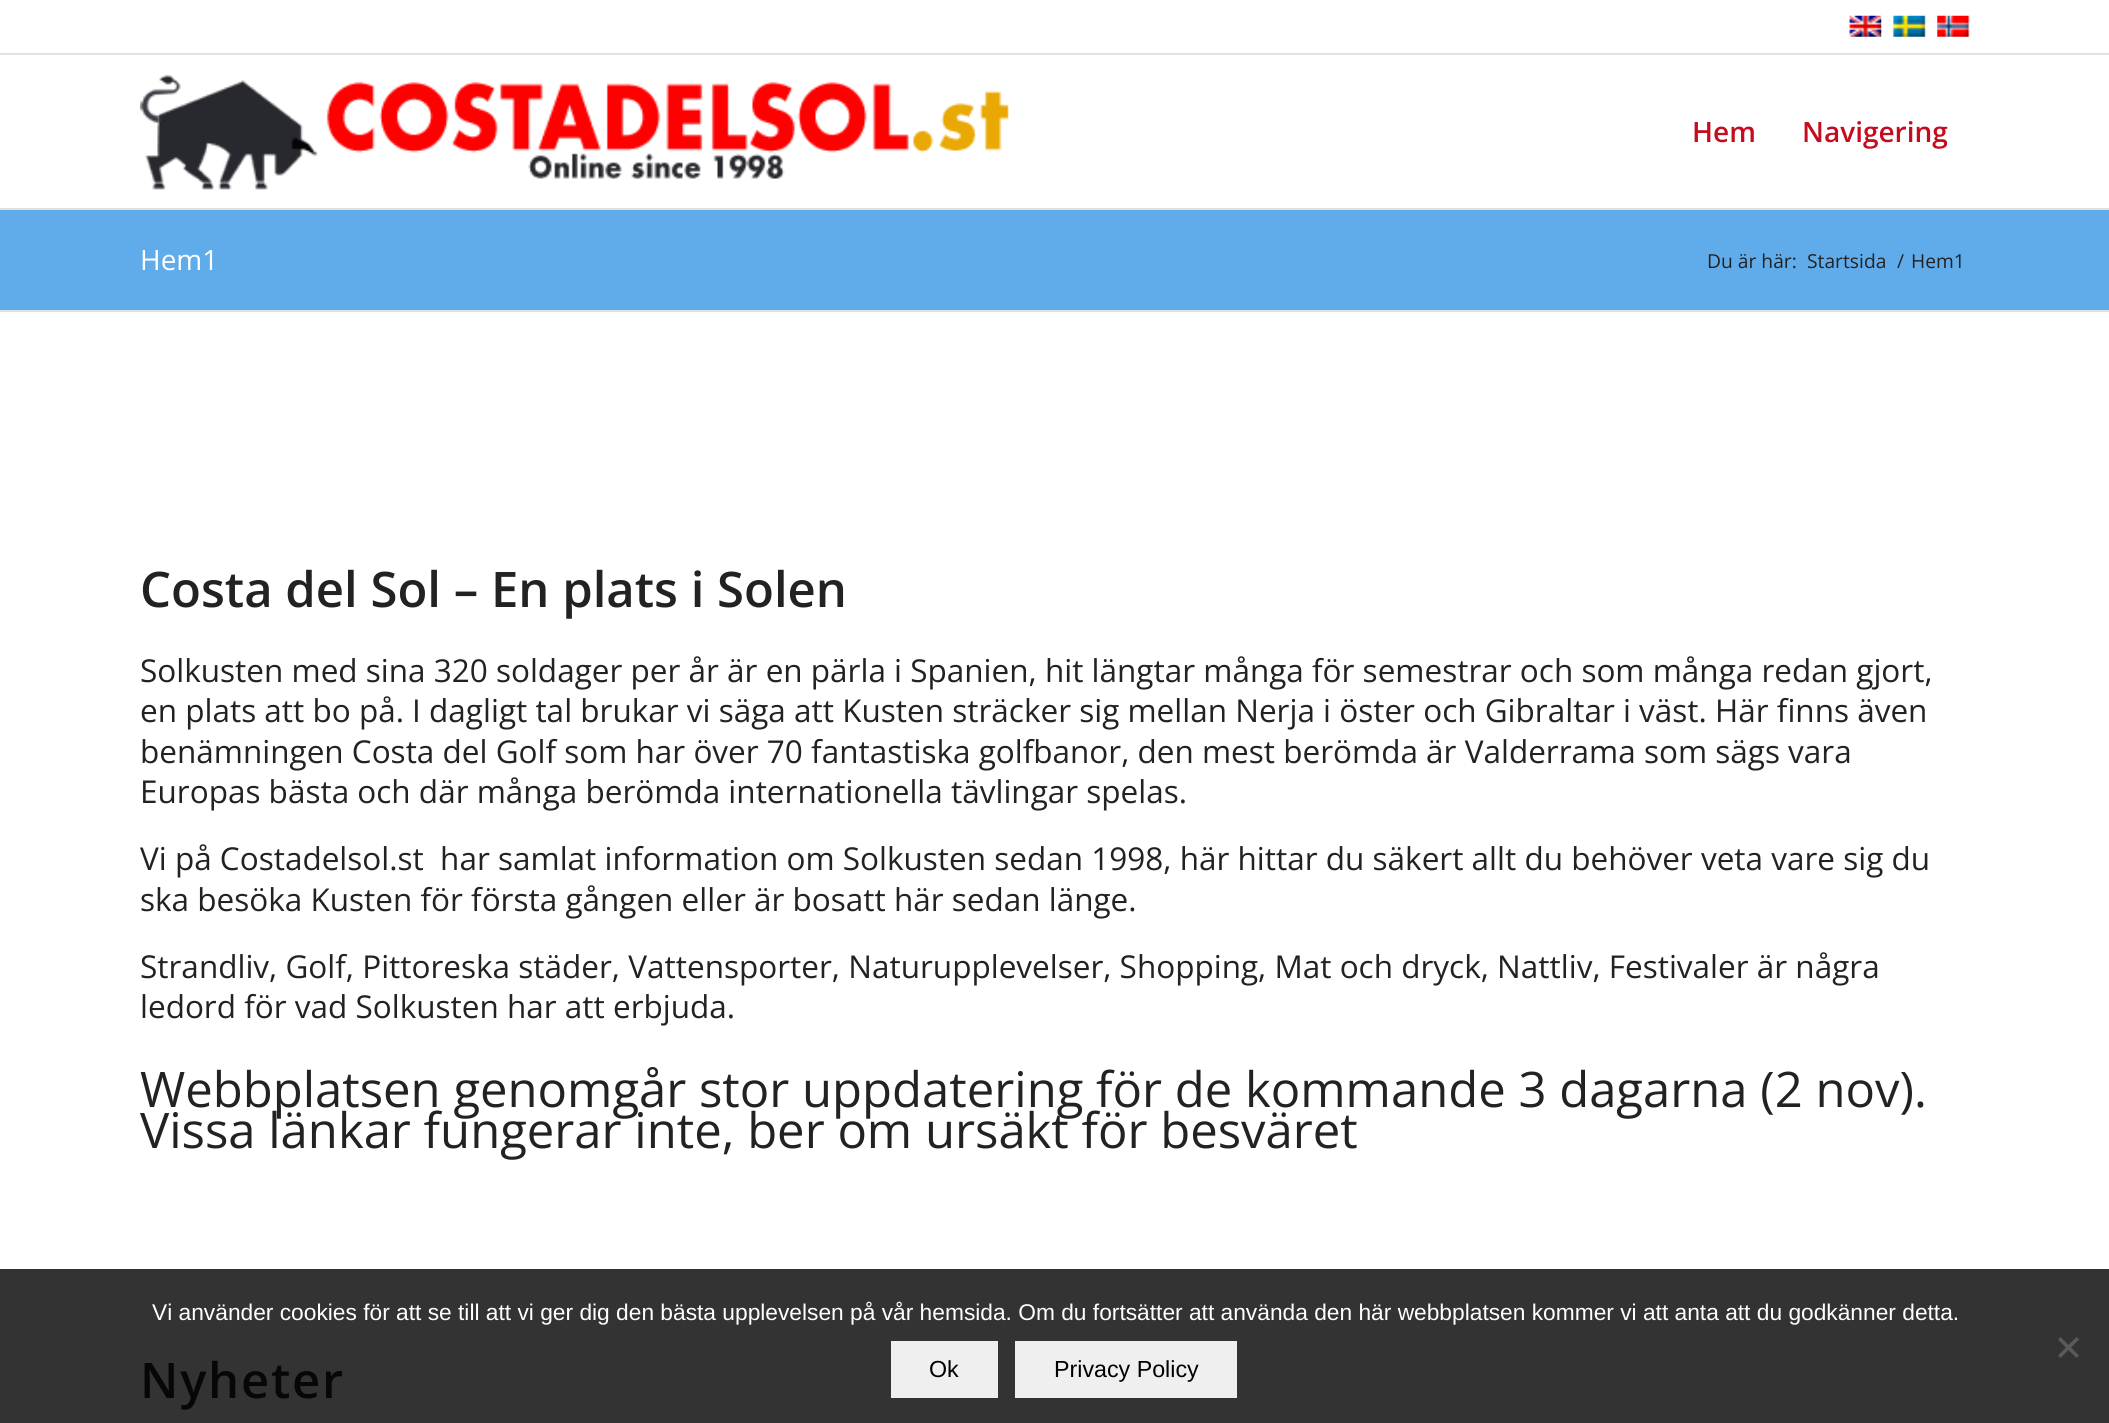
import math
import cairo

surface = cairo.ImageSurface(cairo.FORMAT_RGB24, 2109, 1423)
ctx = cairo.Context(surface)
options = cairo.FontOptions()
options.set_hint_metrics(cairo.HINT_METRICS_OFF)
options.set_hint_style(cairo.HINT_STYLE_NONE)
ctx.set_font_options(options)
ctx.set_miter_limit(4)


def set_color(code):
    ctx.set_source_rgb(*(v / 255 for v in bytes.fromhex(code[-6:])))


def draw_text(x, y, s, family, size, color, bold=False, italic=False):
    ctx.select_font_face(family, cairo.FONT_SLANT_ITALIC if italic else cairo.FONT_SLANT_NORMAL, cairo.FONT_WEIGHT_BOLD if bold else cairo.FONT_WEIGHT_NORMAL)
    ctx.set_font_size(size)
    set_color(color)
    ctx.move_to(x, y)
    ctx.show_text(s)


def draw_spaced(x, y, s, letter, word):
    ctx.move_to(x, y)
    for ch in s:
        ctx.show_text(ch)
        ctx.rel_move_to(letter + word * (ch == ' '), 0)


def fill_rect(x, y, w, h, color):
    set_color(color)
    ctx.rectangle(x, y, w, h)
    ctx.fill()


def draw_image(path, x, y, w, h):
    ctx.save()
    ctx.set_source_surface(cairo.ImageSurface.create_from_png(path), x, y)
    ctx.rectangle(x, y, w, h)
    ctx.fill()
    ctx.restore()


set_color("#ffffff")
ctx.paint()
fill_rect(0, 1269, 2109, 154, "#333333")
fill_rect(0, 53, 2109, 2, "#e1e1e1")
draw_image("assets/img1.png", 1849, 15, 33, 22)
draw_image("assets/img2.png", 1893, 15, 33, 22)
draw_image("assets/img3.png", 1937, 15, 33, 22)
fill_rect(0, 208, 2109, 2, "#e1e1e1")
draw_image("assets/img4.png", 140, 74, 869, 116)
draw_text(1692, 142, "Hem", "Open Sans SemiBold", 28, "#c60b1e")
draw_text(1802, 142, "Navigering", "Open Sans SemiBold", 28, "#c60b1e")
fill_rect(0, 210, 2109, 100, "#60aceb")
draw_text(140, 270, "Hem1", "Open Sans", 28, "#ffffff")
draw_text(1707, 268, "Du är här:", "Open Sans", 19.25, "#222222")
draw_text(1807, 268, "Startsida", "Open Sans", 19.25, "#222222")
draw_text(1897, 268, "/", "Open Sans", 19.25, "#222222")
draw_text(1911, 268, "Hem1", "Open Sans", 19.25, "#222222")
fill_rect(0, 310, 2109, 2, "#e1e1e1")
draw_text(140, 607, "Costa del Sol – En plats i Solen", "Open Sans SemiBold", 49, "#222222")
draw_text(140, 682, "Solkusten med sina 320 soldager per år är en pärla i Spanien, hit längtar många för semestrar och som många redan gjort,", "Open Sans", 31.5, "#222222")
draw_text(140, 722, "en plats att bo på. I dagligt tal brukar vi säga att Kusten sträcker sig mellan Nerja i öster och Gibraltar i väst. Här finns även", "Open Sans", 31.5, "#222222")
draw_text(140, 763, "benämningen Costa del Golf som har över 70 fantastiska golfbanor, den mest berömda är Valderrama som sägs vara", "Open Sans", 31.5, "#222222")
draw_text(140, 803, "Europas bästa och där många berömda internationella tävlingar spelas.", "Open Sans", 31.5, "#222222")
draw_text(140, 870, "Vi på Costadelsol.st  har samlat information om Solkusten sedan 1998, här hittar du säkert allt du behöver veta vare sig du", "Open Sans", 31.5, "#222222")
draw_text(140, 911, "ska besöka Kusten för första gången eller är bosatt här sedan länge.", "Open Sans", 31.5, "#222222")
draw_text(140, 978, "Strandliv, Golf, Pittoreska städer, Vattensporter, Naturupplevelser, Shopping, Mat och dryck, Nattliv, Festivaler är några", "Open Sans", 31.5, "#222222")
draw_text(140, 1018, "ledord för vad Solkusten har att erbjuda.", "Open Sans", 31.5, "#222222")
draw_text(140, 1107, "Webbplatsen genomgår stor uppdatering för de kommande 3 dagarna (2 nov).", "Open Sans", 49, "#222222")
draw_text(140, 1148, "Vissa länkar fungerar inte, ber om ursäkt för besväret", "Open Sans", 49, "#222222")
ctx.select_font_face("Open Sans SemiBold")
set_color("#070707")
draw_spaced(140, 1398, "Nyheter", 1.75, 0)
draw_text(152, 1320, "Vi använder cookies för att se till att vi ger dig den bästa upplevelsen på vår hemsida. Om du fortsätter att använda den här webbplatsen kommer vi att anta att du godkänner detta.", "Liberation Sans", 22.75, "#ffffff")
set_color("#5a5a5a")
ctx.new_path()
ctx.move_to(2076.5, 1337)
ctx.line_to(2079, 1339.5)
ctx.line_to(2060.5, 1358)
ctx.line_to(2058, 1355.5)
ctx.close_path()
ctx.fill()
ctx.new_path()
ctx.move_to(2058, 1339.5)
ctx.line_to(2060.5, 1337)
ctx.line_to(2079, 1355.5)
ctx.line_to(2076.5, 1358)
ctx.close_path()
ctx.fill()
fill_rect(891, 1341, 107, 57, "#efefef")
draw_text(929, 1377, "Ok", "Liberation Sans", 23.25, "#000000")
fill_rect(1015, 1341, 222, 57, "#efefef")
draw_text(1054, 1377, "Privacy Policy", "Liberation Sans", 23.25, "#000000")
surface.write_to_png("output.png")
